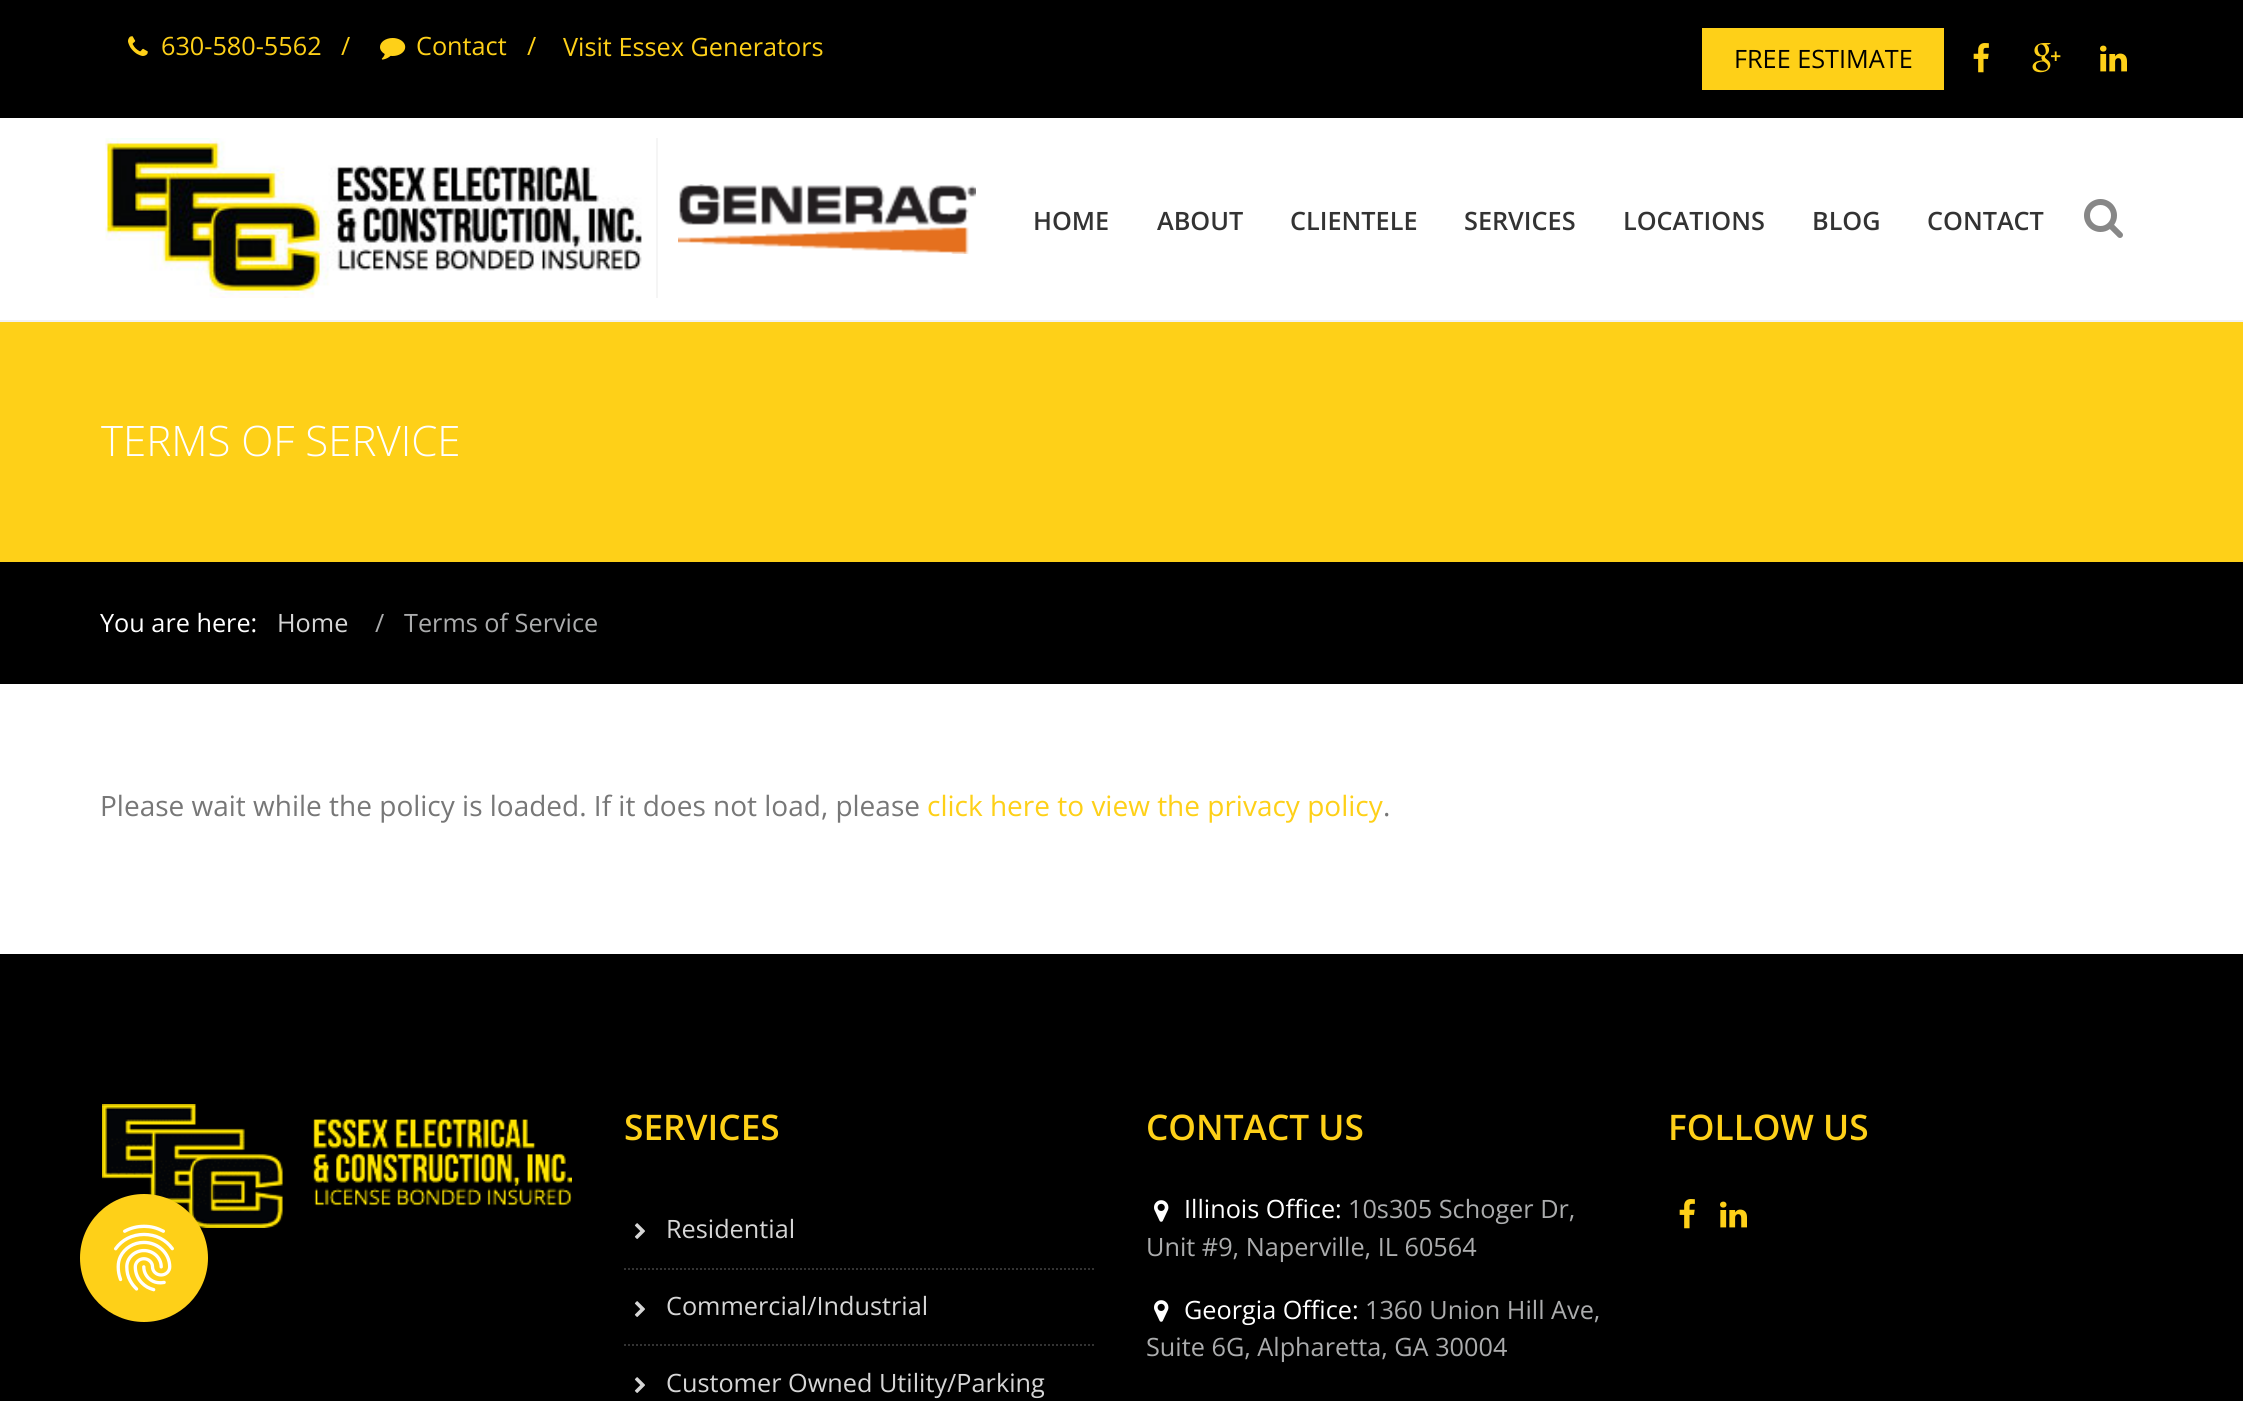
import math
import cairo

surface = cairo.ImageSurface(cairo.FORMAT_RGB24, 2243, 1401)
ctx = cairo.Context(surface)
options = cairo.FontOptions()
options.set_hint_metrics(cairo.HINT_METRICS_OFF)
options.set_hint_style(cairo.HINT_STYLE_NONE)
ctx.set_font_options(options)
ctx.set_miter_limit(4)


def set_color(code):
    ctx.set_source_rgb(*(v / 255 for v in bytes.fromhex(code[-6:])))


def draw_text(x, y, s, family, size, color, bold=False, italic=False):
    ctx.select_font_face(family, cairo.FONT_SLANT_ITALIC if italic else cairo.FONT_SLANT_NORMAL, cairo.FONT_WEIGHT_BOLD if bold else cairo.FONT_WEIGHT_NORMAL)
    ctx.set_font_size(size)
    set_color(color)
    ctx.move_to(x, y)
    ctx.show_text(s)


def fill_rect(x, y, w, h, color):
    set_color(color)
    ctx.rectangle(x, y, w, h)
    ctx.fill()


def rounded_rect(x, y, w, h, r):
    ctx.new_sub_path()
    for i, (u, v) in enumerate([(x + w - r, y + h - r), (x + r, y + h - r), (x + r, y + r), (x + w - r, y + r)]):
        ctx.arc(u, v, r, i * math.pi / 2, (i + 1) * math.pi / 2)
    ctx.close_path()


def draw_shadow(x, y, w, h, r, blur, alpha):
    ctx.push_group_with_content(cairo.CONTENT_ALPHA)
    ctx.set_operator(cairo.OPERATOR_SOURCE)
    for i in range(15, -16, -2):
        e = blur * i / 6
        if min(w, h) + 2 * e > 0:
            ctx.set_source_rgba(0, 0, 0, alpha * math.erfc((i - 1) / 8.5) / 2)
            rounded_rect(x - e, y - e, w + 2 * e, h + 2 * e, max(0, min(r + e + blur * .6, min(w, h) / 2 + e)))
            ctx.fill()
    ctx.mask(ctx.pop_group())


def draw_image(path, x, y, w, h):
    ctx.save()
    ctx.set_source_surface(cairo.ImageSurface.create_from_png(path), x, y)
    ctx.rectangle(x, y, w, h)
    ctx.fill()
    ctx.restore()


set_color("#ffffff")
ctx.paint()
fill_rect(0, 0, 2243, 118, "#000000")
draw_image("assets/img1.png", 128, 36, 20, 20)
draw_text(161, 55, "630-580-5562", "Open Sans", 25.25, "#fed018")
draw_text(341, 55, "/", "Open Sans", 25.25, "#fed018")
draw_image("assets/img2.png", 380, 38, 26, 22)
draw_text(416, 55, "Contact", "Open Sans", 25.25, "#fed018")
draw_text(527, 55, "/", "Open Sans", 25.25, "#fed018")
draw_text(563, 56, "Visit Essex Generators", "Open Sans", 25.25, "#fed018")
fill_rect(1702, 28, 242, 62, "#fed018")
draw_text(1734, 68, "FREE ESTIMATE", "Open Sans", 25.25, "#000000")
draw_image("assets/img3.png", 1973, 43, 16, 30)
draw_image("assets/img4.png", 2032, 43, 29, 30)
draw_image("assets/img5.png", 2100, 45, 27, 27)
fill_rect(0, 320, 2243, 2, "#f2f2f2")
draw_image("assets/img6.png", 105, 138, 537, 160)
fill_rect(656, 138, 2, 160, "#f5f5f5")
draw_image("assets/img7.png", 678, 184, 298, 70)
draw_text(1033, 230, "HOME", "Open Sans SemiBold", 25.25, "#333333")
draw_text(1157, 230, "ABOUT", "Open Sans SemiBold", 25.25, "#333333")
draw_text(1290, 230, "CLIENTELE", "Open Sans SemiBold", 25.25, "#333333")
draw_text(1464, 230, "SERVICES", "Open Sans SemiBold", 25.25, "#333333")
draw_text(1623, 230, "LOCATIONS", "Open Sans SemiBold", 25.25, "#333333")
draw_text(1812, 230, "BLOG", "Open Sans SemiBold", 25.25, "#333333")
draw_text(1927, 230, "CONTACT", "Open Sans SemiBold", 25.25, "#333333")
draw_image("assets/img8.png", 2084, 199, 39, 39)
fill_rect(0, 322, 2243, 240, "#fed018")
draw_text(101, 456, "TERMS OF SERVICE", "Open Sans Light", 42, "#ffffff")
fill_rect(0, 562, 2243, 122, "#000000")
draw_text(100, 632, "You are here:", "Open Sans", 25.25, "#ffffff")
draw_text(277, 632, "Home", "Open Sans", 25.25, "#d6d6d6")
draw_text(375, 632, "/", "Open Sans", 25.25, "#abacad")
draw_text(404, 632, "Terms of Service", "Open Sans", 25.25, "#abacad")
draw_text(100, 816, "Please wait while the policy is loaded. If it does not load, please", "Open Sans", 28, "#777777")
draw_text(927, 816, "click here to view the privacy policy", "Open Sans", 28, "#fed018")
draw_text(1383, 816, ".", "Open Sans", 28, "#777777")
fill_rect(0, 954, 2243, 447, "#000000")
draw_image("assets/img10.png", 102, 1104, 470, 124)
set_color("#000000")
draw_shadow(80, 1196, 128, 128, 64, 18, 0.12)
draw_shadow(82, 1202, 124, 124, 62, 5, 0.2)
set_color("#fed018")
ctx.arc(144, 1258, 64, 0, 2 * math.pi)
ctx.fill()
draw_image("assets/img9.png", 114, 1224, 60, 68)
draw_text(624, 1140, "SERVICES", "Open Sans SemiBold", 35.25, "#fed018")
ctx.new_path()
ctx.move_to(624, 1269)
ctx.line_to(1094, 1269)
set_color("#333333")
ctx.set_dash([2, 2])
ctx.stroke()
draw_image("assets/img11.png", 634, 1223, 11, 16)
draw_text(666, 1238, "Residential", "Open Sans", 25.25, "#d6d6d6")
ctx.new_path()
ctx.move_to(624, 1345)
ctx.line_to(1094, 1345)
set_color("#333333")
ctx.stroke()
draw_image("assets/img11.png", 634, 1301, 11, 16)
draw_text(666, 1315, "Commercial/Industrial", "Open Sans", 25.25, "#d6d6d6")
draw_image("assets/img11.png", 634, 1377, 11, 16)
draw_text(666, 1392, "Customer Owned Utility/Parking", "Open Sans", 25.25, "#d6d6d6")
draw_text(1146, 1140, "CONTACT US", "Open Sans SemiBold", 35.25, "#fed018")
draw_image("assets/img12.png", 1154, 1200, 15, 22)
draw_text(1184, 1218, "Illinois Office:", "Open Sans", 25.25, "#ffffff")
draw_text(1348, 1218, "10s305 Schoger Dr,", "Open Sans", 25.25, "#abacad")
draw_text(1146, 1256, "Unit #9, Naperville, IL 60564", "Open Sans", 25.25, "#abacad")
draw_image("assets/img12.png", 1154, 1300, 15, 22)
draw_text(1184, 1319, "Georgia Office:", "Open Sans", 25.25, "#ffffff")
draw_text(1365, 1319, "1360 Union Hill Ave,", "Open Sans", 25.25, "#abacad")
draw_text(1146, 1356, "Suite 6G, Alpharetta, GA 30004", "Open Sans", 25.25, "#abacad")
draw_text(1668, 1140, "FOLLOW US", "Open Sans SemiBold", 35.25, "#fed018")
draw_image("assets/img3.png", 1679, 1199, 16, 30)
draw_image("assets/img5.png", 1720, 1201, 27, 27)
surface.write_to_png("output.png")
